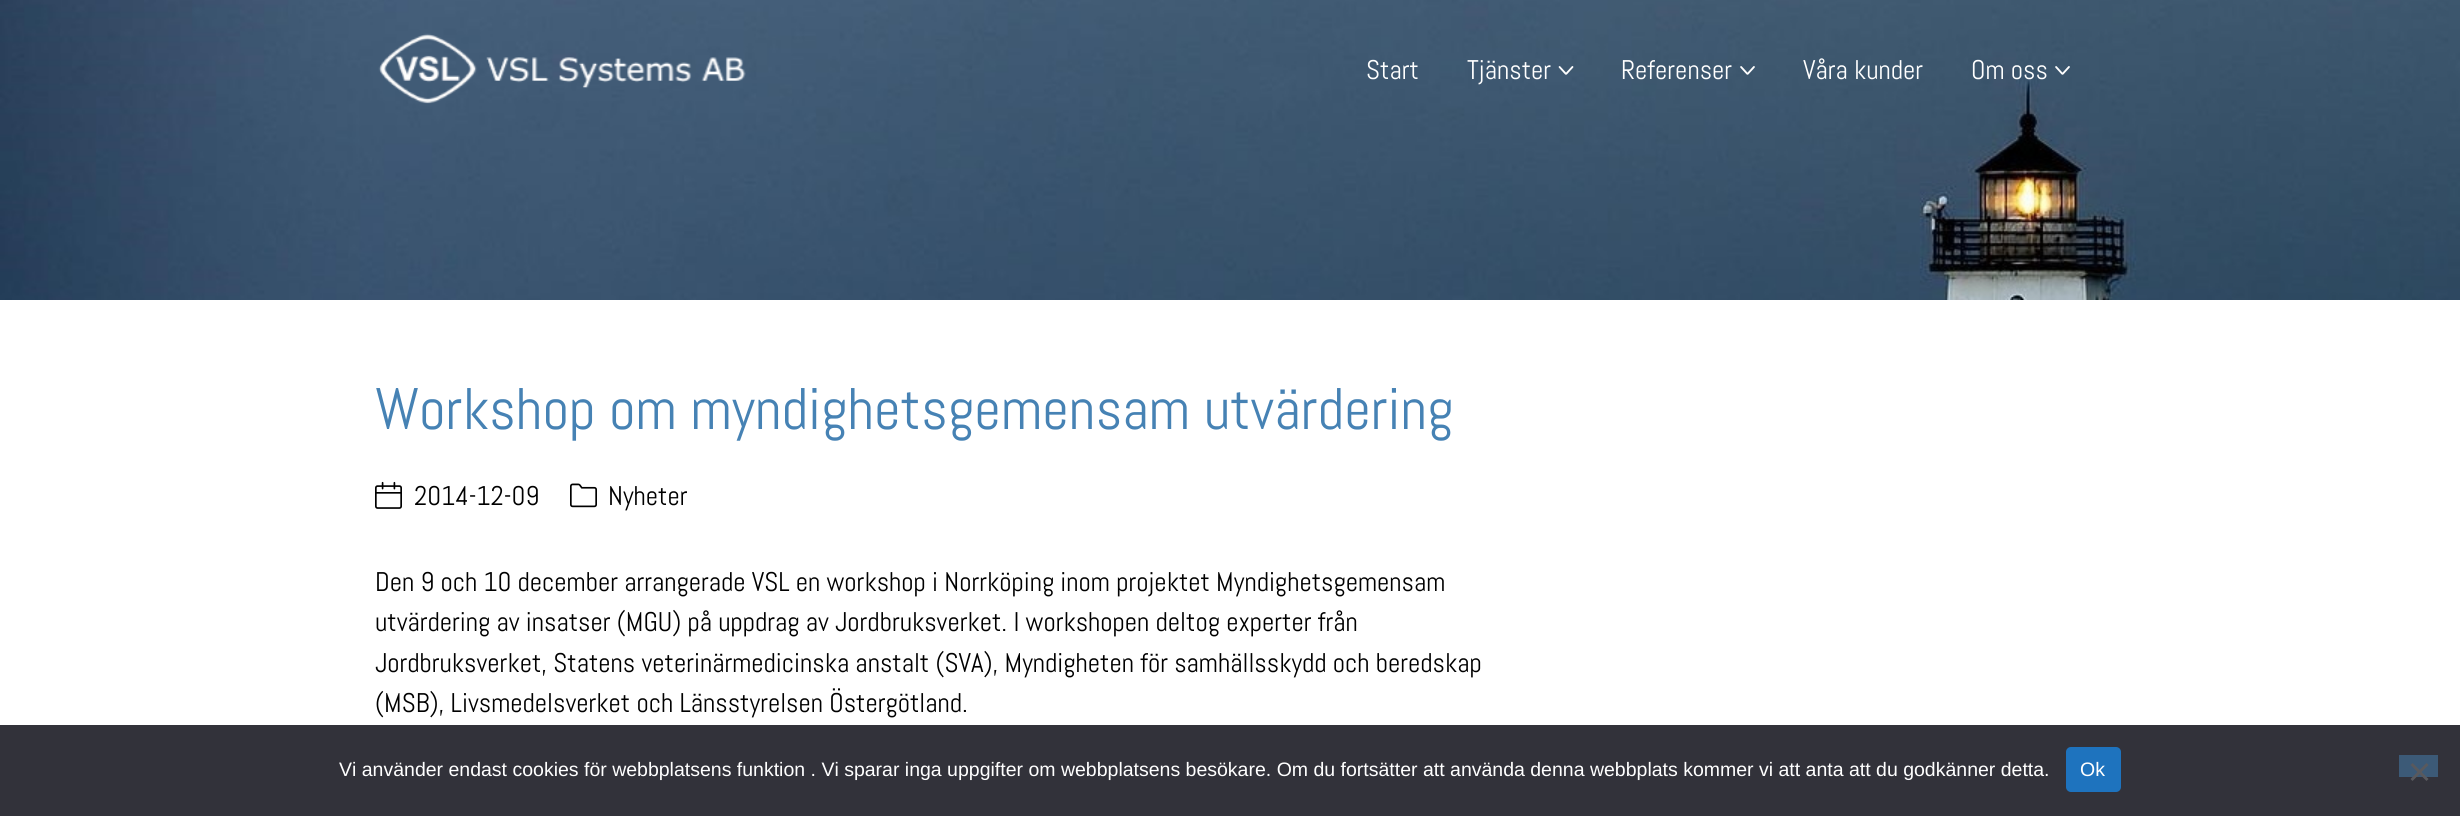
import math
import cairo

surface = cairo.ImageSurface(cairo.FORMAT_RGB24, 2460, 816)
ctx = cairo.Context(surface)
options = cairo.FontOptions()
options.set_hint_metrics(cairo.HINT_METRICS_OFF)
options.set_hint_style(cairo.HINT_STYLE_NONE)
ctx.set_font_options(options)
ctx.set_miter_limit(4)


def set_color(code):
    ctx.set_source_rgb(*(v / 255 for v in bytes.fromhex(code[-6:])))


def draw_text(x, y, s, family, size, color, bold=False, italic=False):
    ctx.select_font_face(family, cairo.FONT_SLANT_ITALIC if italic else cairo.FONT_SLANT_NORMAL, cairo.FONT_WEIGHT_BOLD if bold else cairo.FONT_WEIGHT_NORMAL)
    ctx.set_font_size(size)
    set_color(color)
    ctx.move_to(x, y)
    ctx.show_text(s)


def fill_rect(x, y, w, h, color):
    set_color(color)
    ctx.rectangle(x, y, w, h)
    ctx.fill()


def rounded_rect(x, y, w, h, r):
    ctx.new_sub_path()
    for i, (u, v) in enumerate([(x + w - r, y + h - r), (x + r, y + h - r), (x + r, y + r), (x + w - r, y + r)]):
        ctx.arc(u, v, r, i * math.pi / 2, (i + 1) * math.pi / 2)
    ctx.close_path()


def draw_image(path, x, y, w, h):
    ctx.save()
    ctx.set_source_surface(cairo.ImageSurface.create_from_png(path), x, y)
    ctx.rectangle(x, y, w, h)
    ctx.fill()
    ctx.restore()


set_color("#ffffff")
ctx.paint()
draw_image("assets/img5.png", 0, 0, 2460, 300)
draw_image("assets/img1.png", 378, 33, 368, 71)
draw_text(1366, 79, "Start", "Abel", 27, "#ffffff")
draw_text(1467, 79, "Tjänster", "Abel", 27, "#ffffff")
draw_image("assets/img2.png", 1558, 66, 16, 9)
draw_text(1621, 79, "Referenser", "Abel", 27, "#ffffff")
draw_image("assets/img3.png", 1740, 66, 15, 9)
draw_text(1803, 79, "Våra kunder", "Abel", 27, "#ffffff")
draw_text(1971, 79, "Om oss", "Abel", 27, "#ffffff")
draw_image("assets/img4.png", 2055, 66, 15, 9)
draw_text(375, 429, "Workshop om myndighetsgemensam utvärdering", "Abel", 58.5, "#4682b4")
draw_image("assets/img6.png", 375, 481, 27, 28)
draw_text(414, 505, "2014-12-09", "Abel", 27, "#000000")
draw_image("assets/img7.png", 570, 483, 27, 25)
draw_text(608, 505, "Nyheter", "Abel", 27, "#000000")
draw_text(375, 591, "Den 9 och 10 december arrangerade VSL en workshop i Norrköping inom projektet Myndighetsgemensam", "Abel", 27, "#000000")
draw_text(375, 631, "utvärdering av insatser (MGU) på uppdrag av Jordbruksverket. I workshopen deltog experter från", "Abel", 27, "#000000")
draw_text(375, 672, "Jordbruksverket, Statens veterinärmedicinska anstalt (SVA), Myndigheten för samhällsskydd och beredskap", "Abel", 27, "#000000")
draw_text(375, 712, "(MSB), Livsmedelsverket och Länsstyrelsen Östergötland.", "Abel", 27, "#000000")
fill_rect(0, 725, 2460, 91, "#32323a")
draw_text(339, 776, "Vi använder endast cookies för webbplatsens funktion . Vi sparar inga uppgifter om webbplatsens besökare. Om du fortsätter att använda denna webbplats kommer vi att anta att du godkänner detta.", "Liberation Sans", 19.5, "#ffffff")
set_color("#1e73be")
rounded_rect(2066, 747, 55, 45, 5)
ctx.fill()
draw_text(2080, 776, "Ok", "Liberation Sans", 19.5, "#ffffff")
fill_rect(2399, 755, 39, 22, "#3c5a77")
set_color("#59595d")
ctx.new_path()
ctx.move_to(2426.5, 763)
ctx.line_to(2428.5, 765)
ctx.line_to(2412.5, 781)
ctx.line_to(2410.5, 779)
ctx.close_path()
ctx.fill()
ctx.new_path()
ctx.move_to(2410.5, 765)
ctx.line_to(2412.5, 763)
ctx.line_to(2428.5, 779)
ctx.line_to(2426.5, 781)
ctx.close_path()
ctx.fill()
surface.write_to_png("output.png")
